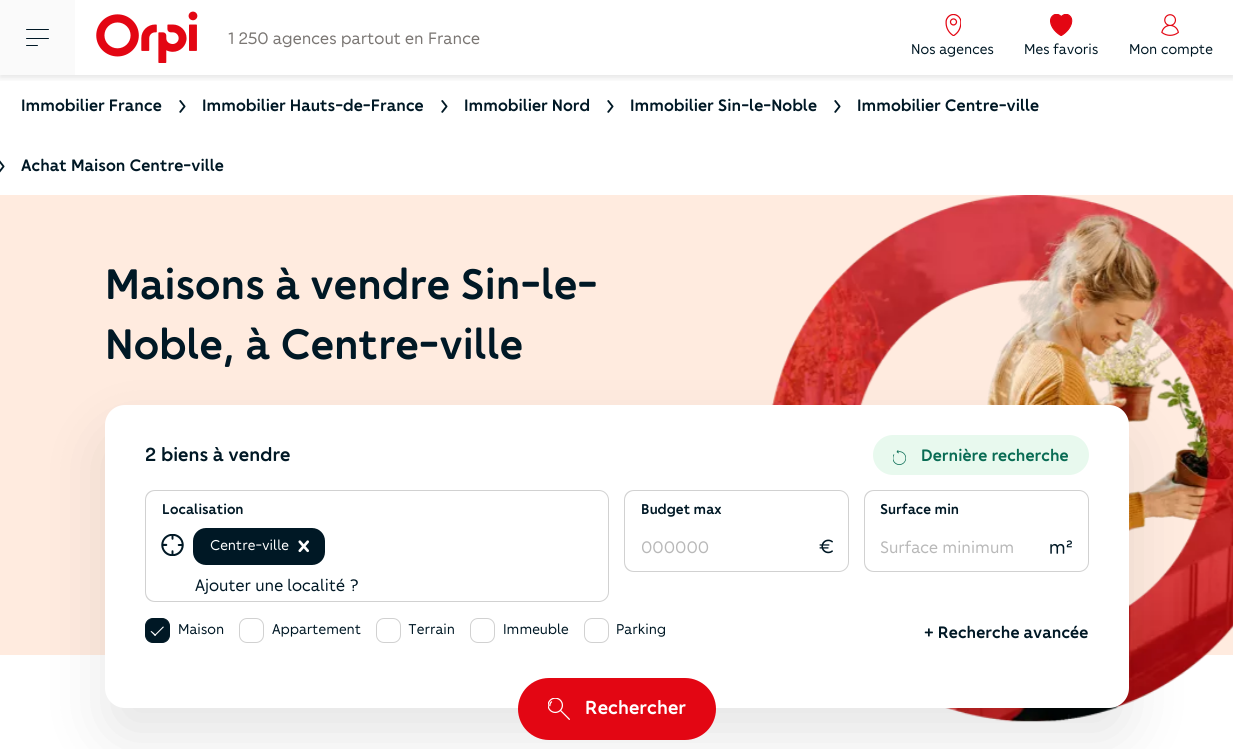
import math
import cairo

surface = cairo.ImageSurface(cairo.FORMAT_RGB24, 1233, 749)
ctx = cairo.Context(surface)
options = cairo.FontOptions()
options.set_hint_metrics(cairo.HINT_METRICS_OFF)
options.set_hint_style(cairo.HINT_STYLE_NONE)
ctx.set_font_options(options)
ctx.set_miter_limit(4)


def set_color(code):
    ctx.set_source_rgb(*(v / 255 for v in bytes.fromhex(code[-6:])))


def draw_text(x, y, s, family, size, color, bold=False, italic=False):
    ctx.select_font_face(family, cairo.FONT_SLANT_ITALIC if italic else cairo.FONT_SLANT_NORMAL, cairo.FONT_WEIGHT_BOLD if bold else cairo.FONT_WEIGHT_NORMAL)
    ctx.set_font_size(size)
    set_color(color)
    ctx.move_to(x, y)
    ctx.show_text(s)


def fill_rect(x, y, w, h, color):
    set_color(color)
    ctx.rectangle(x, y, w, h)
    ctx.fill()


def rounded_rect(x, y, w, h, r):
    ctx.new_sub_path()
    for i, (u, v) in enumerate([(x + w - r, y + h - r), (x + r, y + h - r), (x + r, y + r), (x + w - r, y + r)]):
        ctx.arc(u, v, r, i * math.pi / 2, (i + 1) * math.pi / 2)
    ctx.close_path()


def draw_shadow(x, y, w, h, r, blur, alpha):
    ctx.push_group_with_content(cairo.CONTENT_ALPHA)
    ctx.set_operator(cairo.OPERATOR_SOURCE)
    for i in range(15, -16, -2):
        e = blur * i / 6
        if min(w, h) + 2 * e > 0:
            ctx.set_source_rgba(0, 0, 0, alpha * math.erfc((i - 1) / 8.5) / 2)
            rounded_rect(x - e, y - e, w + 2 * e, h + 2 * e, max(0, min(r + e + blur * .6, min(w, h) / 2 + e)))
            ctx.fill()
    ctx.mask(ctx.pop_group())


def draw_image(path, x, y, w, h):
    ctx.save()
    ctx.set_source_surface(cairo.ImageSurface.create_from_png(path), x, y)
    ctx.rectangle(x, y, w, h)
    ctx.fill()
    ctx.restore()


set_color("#ffffff")
ctx.paint()
ctx.save()
ctx.rectangle(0, 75, 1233, 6)
ctx.clip()
set_color("#000000")
draw_shadow(0, 3, 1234, 75, 0, 3, 0.1)
ctx.restore()
fill_rect(0, 0, 75, 75, "#fafafa")
set_color("#001825")
rounded_rect(26, 38, 23, 1, 0.5)
ctx.fill()
rounded_rect(26, 29, 23, 1, 0.5)
ctx.fill()
rounded_rect(26, 45, 12, 1, 0.5)
ctx.fill()
draw_image("assets/img1.png", 96, 11, 102, 52)
draw_text(228, 44, "1 250 agences partout en France", "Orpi", 17.5, "#7a7673")
draw_image("assets/img2.png", 945, 14, 16, 22)
draw_text(911, 54, "Nos agences", "Orpi", 15, "#001825")
draw_image("assets/img3.png", 1050, 14, 23, 22)
draw_text(1024, 54, "Mes favoris", "Orpi", 15, "#001825")
draw_image("assets/img4.png", 1161, 14, 18, 22)
draw_text(1129, 54, "Mon compte", "Orpi", 15, "#001825")
draw_text(21, 111, "Immobilier France", "Orpi Medium", 17.5, "#001825")
draw_text(178, 114, "›", "Orpi", 28, "#001825")
draw_text(202, 111, "Immobilier Hauts-de-France", "Orpi Medium", 17.5, "#001825")
draw_text(440, 114, "›", "Orpi", 28, "#001825")
draw_text(464, 111, "Immobilier Nord", "Orpi Medium", 17.5, "#001825")
draw_text(606, 114, "›", "Orpi", 28, "#001825")
draw_text(630, 111, "Immobilier Sin-le-Noble", "Orpi Medium", 17.5, "#001825")
draw_text(833, 114, "›", "Orpi", 28, "#001825")
draw_text(857, 111, "Immobilier Centre-ville", "Orpi Medium", 17.5, "#001825")
draw_text(-3, 174, "›", "Orpi", 28, "#001825")
draw_text(21, 171, "Achat Maison Centre-ville", "Orpi Medium", 17.5, "#001825")
fill_rect(0, 195, 1233, 460, "#ffebdf")
draw_text(105, 299, "Maisons à vendre Sin-le-", "Orpi Medium", 45, "#001825")
draw_text(105, 359, "Noble, à Centre-ville", "Orpi Medium", 45, "#001825")
draw_image("assets/img5.png", 771, 195, 462, 527)
set_color("#000000")
draw_shadow(105, 435, 1024, 303, 20, 30, 0.1)
set_color("#ffffff")
rounded_rect(105, 405, 1024, 303, 20)
ctx.fill()
draw_text(145, 461, "2 biens à vendre", "Orpi Medium", 20, "#001825")
set_color("#e8f9ee")
rounded_rect(873, 435, 216, 40, 20)
ctx.fill()
draw_image("assets/img6.png", 893, 450, 13, 15)
draw_text(921, 461, "Dernière recherche", "Orpi Medium", 17.5, "#096c54")
set_color("#d1d1d1")
ctx.set_fill_rule(cairo.FILL_RULE_EVEN_ODD)
ctx.new_path()
ctx.move_to(155, 490)
ctx.line_to(599, 490)
ctx.curve_to(604, 490, 609, 494, 609, 500)
ctx.line_to(609, 522)
ctx.line_to(145, 522)
ctx.line_to(145, 500)
ctx.curve_to(145, 494, 149, 490, 155, 490)
ctx.close_path()
ctx.move_to(155, 491)
ctx.line_to(599, 491)
ctx.curve_to(604, 491, 608, 495, 608, 500)
ctx.line_to(608, 522)
ctx.line_to(146, 522)
ctx.line_to(146, 500)
ctx.curve_to(146, 495, 150, 491, 155, 491)
ctx.close_path()
ctx.fill()
draw_text(162, 514, "Localisation", "Orpi Medium", 15, "#001825")
set_color("#d1d1d1")
ctx.new_path()
ctx.move_to(145, 522)
ctx.line_to(609, 522)
ctx.line_to(609, 592)
ctx.curve_to(609, 598, 604, 602, 599, 602)
ctx.line_to(155, 602)
ctx.curve_to(149, 602, 145, 598, 145, 592)
ctx.close_path()
ctx.move_to(146, 522)
ctx.line_to(608, 522)
ctx.line_to(608, 592)
ctx.curve_to(608, 597, 604, 601, 599, 601)
ctx.line_to(155, 601)
ctx.curve_to(150, 601, 146, 597, 146, 592)
ctx.close_path()
ctx.fill()
draw_image("assets/img7.png", 161, 534, 23, 22)
set_color("#001825")
rounded_rect(193, 528, 132, 37, 13)
ctx.fill()
draw_text(210, 550, "Centre-ville", "Orpi", 15, "#ffffff")
draw_image("assets/img8.png", 298, 540, 11, 13)
draw_text(195, 591, "Ajouter une localité ?", "Orpi", 17.5, "#001825")
set_color("#d1d1d1")
ctx.new_path()
ctx.move_to(634, 490)
ctx.line_to(839, 490)
ctx.curve_to(844, 490, 849, 494, 849, 500)
ctx.line_to(849, 522)
ctx.line_to(624, 522)
ctx.line_to(624, 500)
ctx.curve_to(624, 494, 628, 490, 634, 490)
ctx.close_path()
ctx.move_to(634, 491)
ctx.line_to(839, 491)
ctx.curve_to(844, 491, 848, 495, 848, 500)
ctx.line_to(848, 522)
ctx.line_to(625, 522)
ctx.line_to(625, 500)
ctx.curve_to(625, 495, 629, 491, 634, 491)
ctx.close_path()
ctx.fill()
draw_text(641, 514, "Budget max", "Orpi Medium", 15, "#001825")
set_color("#d1d1d1")
ctx.new_path()
ctx.move_to(624, 522)
ctx.line_to(849, 522)
ctx.line_to(849, 562)
ctx.curve_to(849, 568, 844, 572, 839, 572)
ctx.line_to(634, 572)
ctx.curve_to(628, 572, 624, 568, 624, 562)
ctx.close_path()
ctx.move_to(625, 522)
ctx.line_to(848, 522)
ctx.line_to(848, 562)
ctx.curve_to(848, 567, 844, 571, 839, 571)
ctx.line_to(634, 571)
ctx.curve_to(629, 571, 625, 567, 625, 562)
ctx.close_path()
ctx.fill()
draw_text(641, 553, "000000", "Orpi", 17.5, "#b8b8b8")
draw_text(819, 553, "€", "Orpi", 20, "#001825")
set_color("#d1d1d1")
ctx.new_path()
ctx.move_to(874, 490)
ctx.line_to(1079, 490)
ctx.curve_to(1084, 490, 1089, 494, 1089, 500)
ctx.line_to(1089, 522)
ctx.line_to(864, 522)
ctx.line_to(864, 500)
ctx.curve_to(864, 494, 868, 490, 874, 490)
ctx.close_path()
ctx.move_to(874, 491)
ctx.line_to(1079, 491)
ctx.curve_to(1084, 491, 1088, 495, 1088, 500)
ctx.line_to(1088, 522)
ctx.line_to(865, 522)
ctx.line_to(865, 500)
ctx.curve_to(865, 495, 869, 491, 874, 491)
ctx.close_path()
ctx.fill()
draw_text(880, 514, "Surface min", "Orpi Medium", 15, "#001825")
set_color("#d1d1d1")
ctx.new_path()
ctx.move_to(864, 522)
ctx.line_to(1089, 522)
ctx.line_to(1089, 562)
ctx.curve_to(1089, 568, 1084, 572, 1079, 572)
ctx.line_to(874, 572)
ctx.curve_to(868, 572, 864, 568, 864, 562)
ctx.close_path()
ctx.move_to(865, 522)
ctx.line_to(1088, 522)
ctx.line_to(1088, 562)
ctx.curve_to(1088, 567, 1084, 571, 1079, 571)
ctx.line_to(874, 571)
ctx.curve_to(869, 571, 865, 567, 865, 562)
ctx.close_path()
ctx.fill()
draw_text(880, 553, "Surface minimum", "Orpi", 17.5, "#b8b8b8")
draw_image("assets/img9.png", 1050, 540, 22, 14)
set_color("#001825")
rounded_rect(145.5, 618.5, 24, 24, 7.5)
ctx.fill_preserve()
ctx.set_line_width(1)
ctx.stroke()
draw_text(178, 634, "Maison", "Orpi", 15, "#001825")
set_color("#ffffff")
ctx.set_fill_rule(cairo.FILL_RULE_WINDING)
ctx.new_path()
ctx.move_to(163, 626.5)
ctx.line_to(164, 627)
ctx.line_to(155, 636)
ctx.line_to(154.5, 635)
ctx.close_path()
ctx.fill()
ctx.new_path()
ctx.move_to(151.5, 631)
ctx.line_to(156, 635)
ctx.line_to(155, 636)
ctx.line_to(150.5, 631.5)
ctx.close_path()
ctx.fill()
rounded_rect(239.5, 618.5, 24, 24, 7.5)
set_color("#d1d1d1")
ctx.stroke()
draw_text(272, 634, "Appartement", "Orpi", 15, "#001825")
rounded_rect(376.5, 618.5, 24, 24, 7.5)
set_color("#d1d1d1")
ctx.stroke()
draw_text(408, 634, "Terrain", "Orpi", 15, "#001825")
rounded_rect(470.5, 618.5, 24, 24, 7.5)
set_color("#d1d1d1")
ctx.stroke()
draw_text(503, 634, "Immeuble", "Orpi", 15, "#001825")
rounded_rect(584.5, 618.5, 24, 24, 7.5)
set_color("#d1d1d1")
ctx.stroke()
draw_text(616, 634, "Parking", "Orpi", 15, "#001825")
draw_text(924, 638, "+ Recherche avancée", "Orpi Medium", 17.5, "#001825")
set_color("#e30613")
rounded_rect(518, 678, 198, 62, 31)
ctx.fill()
draw_image("assets/img10.png", 548, 698, 22, 22)
draw_text(585, 714, "Rechercher", "Orpi Medium", 20, "#ffffff")
surface.write_to_png("output.png")
